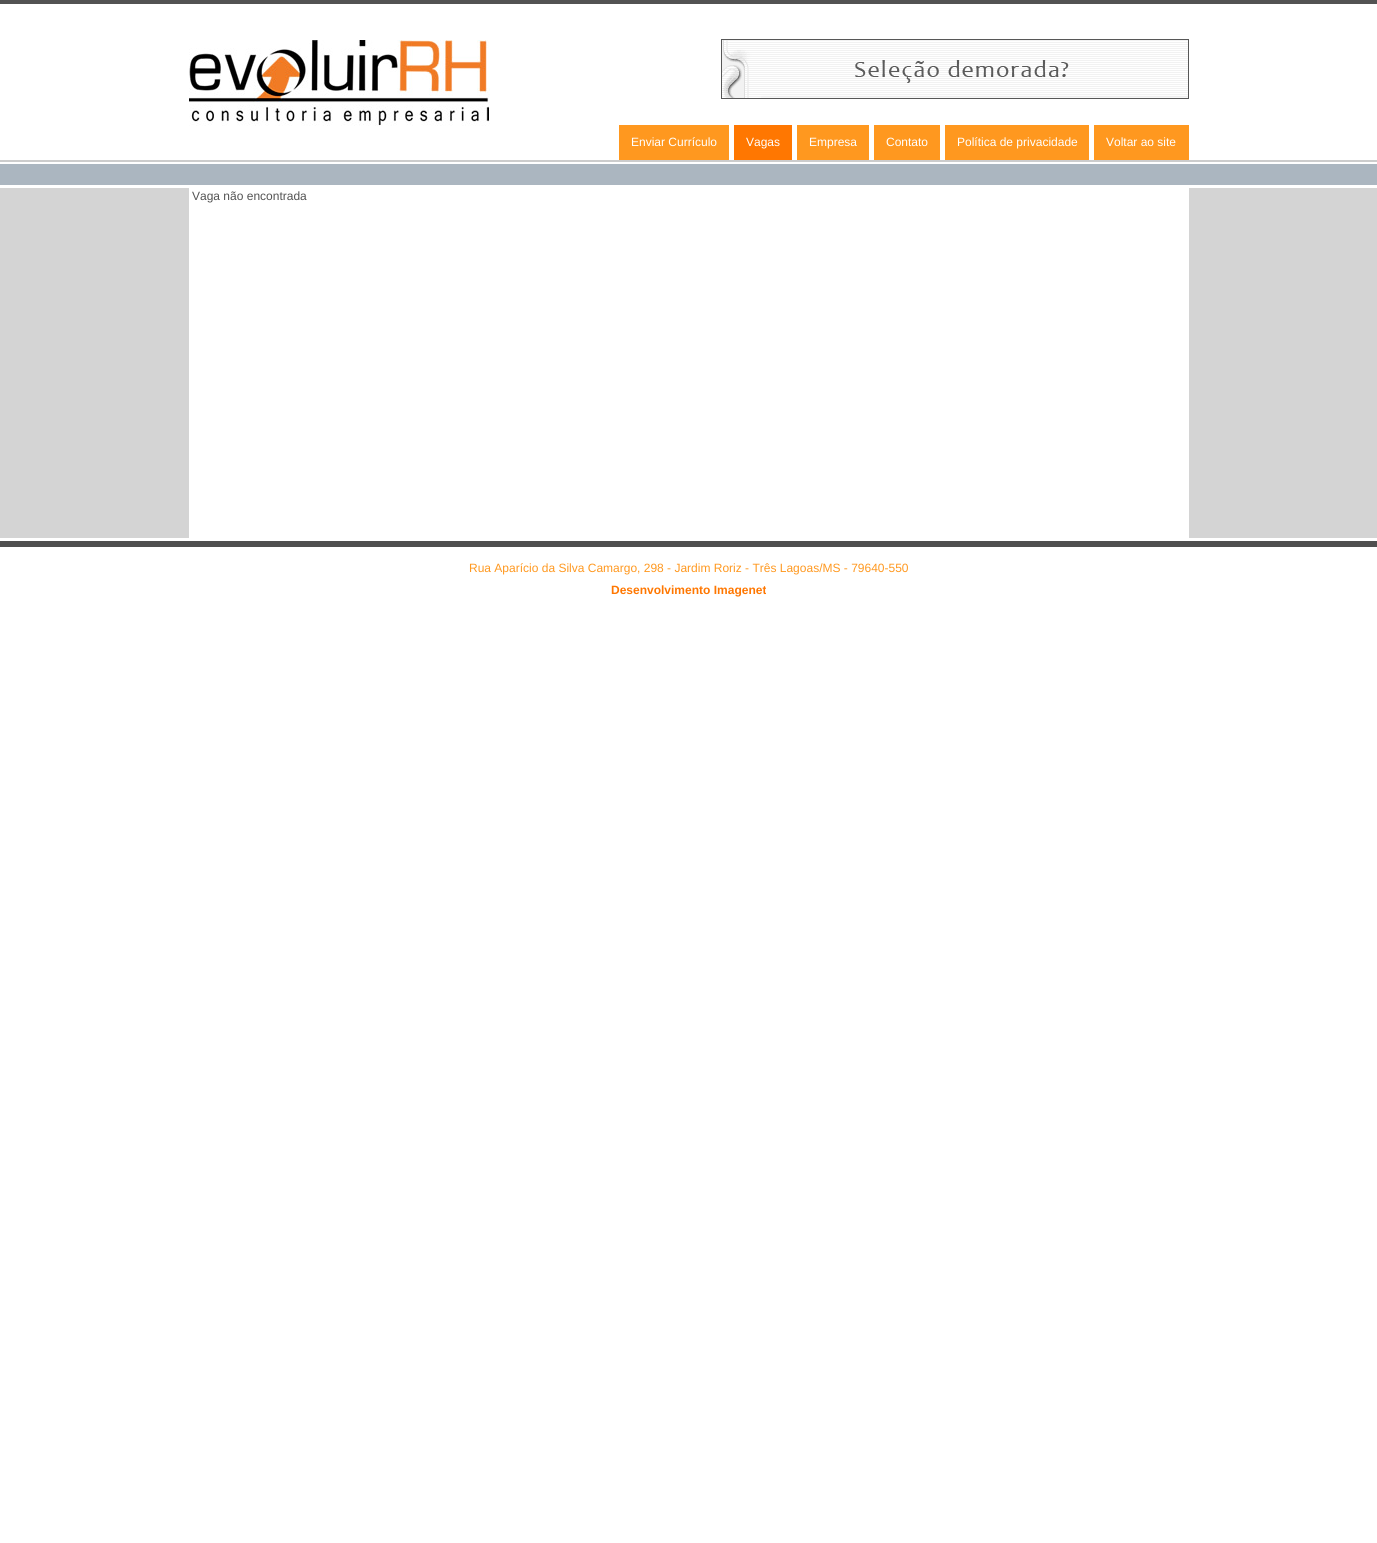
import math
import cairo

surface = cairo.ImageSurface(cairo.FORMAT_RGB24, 1377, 1543)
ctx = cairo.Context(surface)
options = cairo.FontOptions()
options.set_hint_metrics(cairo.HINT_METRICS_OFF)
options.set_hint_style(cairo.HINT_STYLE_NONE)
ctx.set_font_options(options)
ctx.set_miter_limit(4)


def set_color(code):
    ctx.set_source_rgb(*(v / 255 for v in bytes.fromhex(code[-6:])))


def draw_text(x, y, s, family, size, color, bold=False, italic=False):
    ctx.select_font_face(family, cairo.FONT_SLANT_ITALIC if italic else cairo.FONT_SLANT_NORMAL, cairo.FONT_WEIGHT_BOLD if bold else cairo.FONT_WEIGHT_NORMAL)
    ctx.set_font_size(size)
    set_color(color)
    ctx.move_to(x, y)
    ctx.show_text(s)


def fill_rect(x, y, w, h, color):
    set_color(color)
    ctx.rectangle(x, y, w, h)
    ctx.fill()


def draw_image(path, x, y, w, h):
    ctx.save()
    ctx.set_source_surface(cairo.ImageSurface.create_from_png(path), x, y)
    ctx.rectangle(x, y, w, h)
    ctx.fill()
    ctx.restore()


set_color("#ffffff")
ctx.paint()
fill_rect(0, 0, 1377, 4, "#535353")
fill_rect(0, 160, 1377, 2, "#cccccc")
draw_image("assets/img1.png", 189, 40, 301, 86)
draw_image("assets/img2.png", 721, 39, 468, 60)
fill_rect(619, 125, 110, 35, "#ff981f")
draw_text(631, 146, "Enviar Currículo", "Liberation Sans", 12, "#ffffff")
fill_rect(734, 125, 58, 35, "#ff7701")
draw_text(746, 146, "Vagas", "Liberation Sans", 12, "#ffffff")
fill_rect(797, 125, 72, 35, "#ff981f")
draw_text(809, 146, "Empresa", "Liberation Sans", 12, "#ffffff")
fill_rect(874, 125, 66, 35, "#ff981f")
draw_text(886, 146, "Contato", "Liberation Sans", 12, "#ffffff")
fill_rect(945, 125, 144, 35, "#ff981f")
draw_text(957, 146, "Política de privacidade", "Liberation Sans", 12, "#ffffff")
fill_rect(1094, 125, 95, 35, "#ff981f")
draw_text(1106, 146, "Voltar ao site", "Liberation Sans", 12, "#ffffff")
fill_rect(0, 164, 1377, 21, "#abb6c0")
fill_rect(0, 188, 1377, 350, "#d4d4d4")
fill_rect(189, 188, 1000, 350, "#ffffff")
draw_text(192, 200, "Vaga não encontrada", "Liberation Sans", 12, "#535353")
fill_rect(0, 541, 1377, 6, "#4f4f4f")
draw_text(469, 572, "Rua Aparício da Silva Camargo, 298 - Jardim Roriz - Três Lagoas/MS - 79640-550", "Liberation Sans", 12, "#ff981f")
draw_text(611, 594, "Desenvolvimento Imagenet", "Liberation Sans", 12, "#ff7701", bold=True)
surface.write_to_png("output.png")
